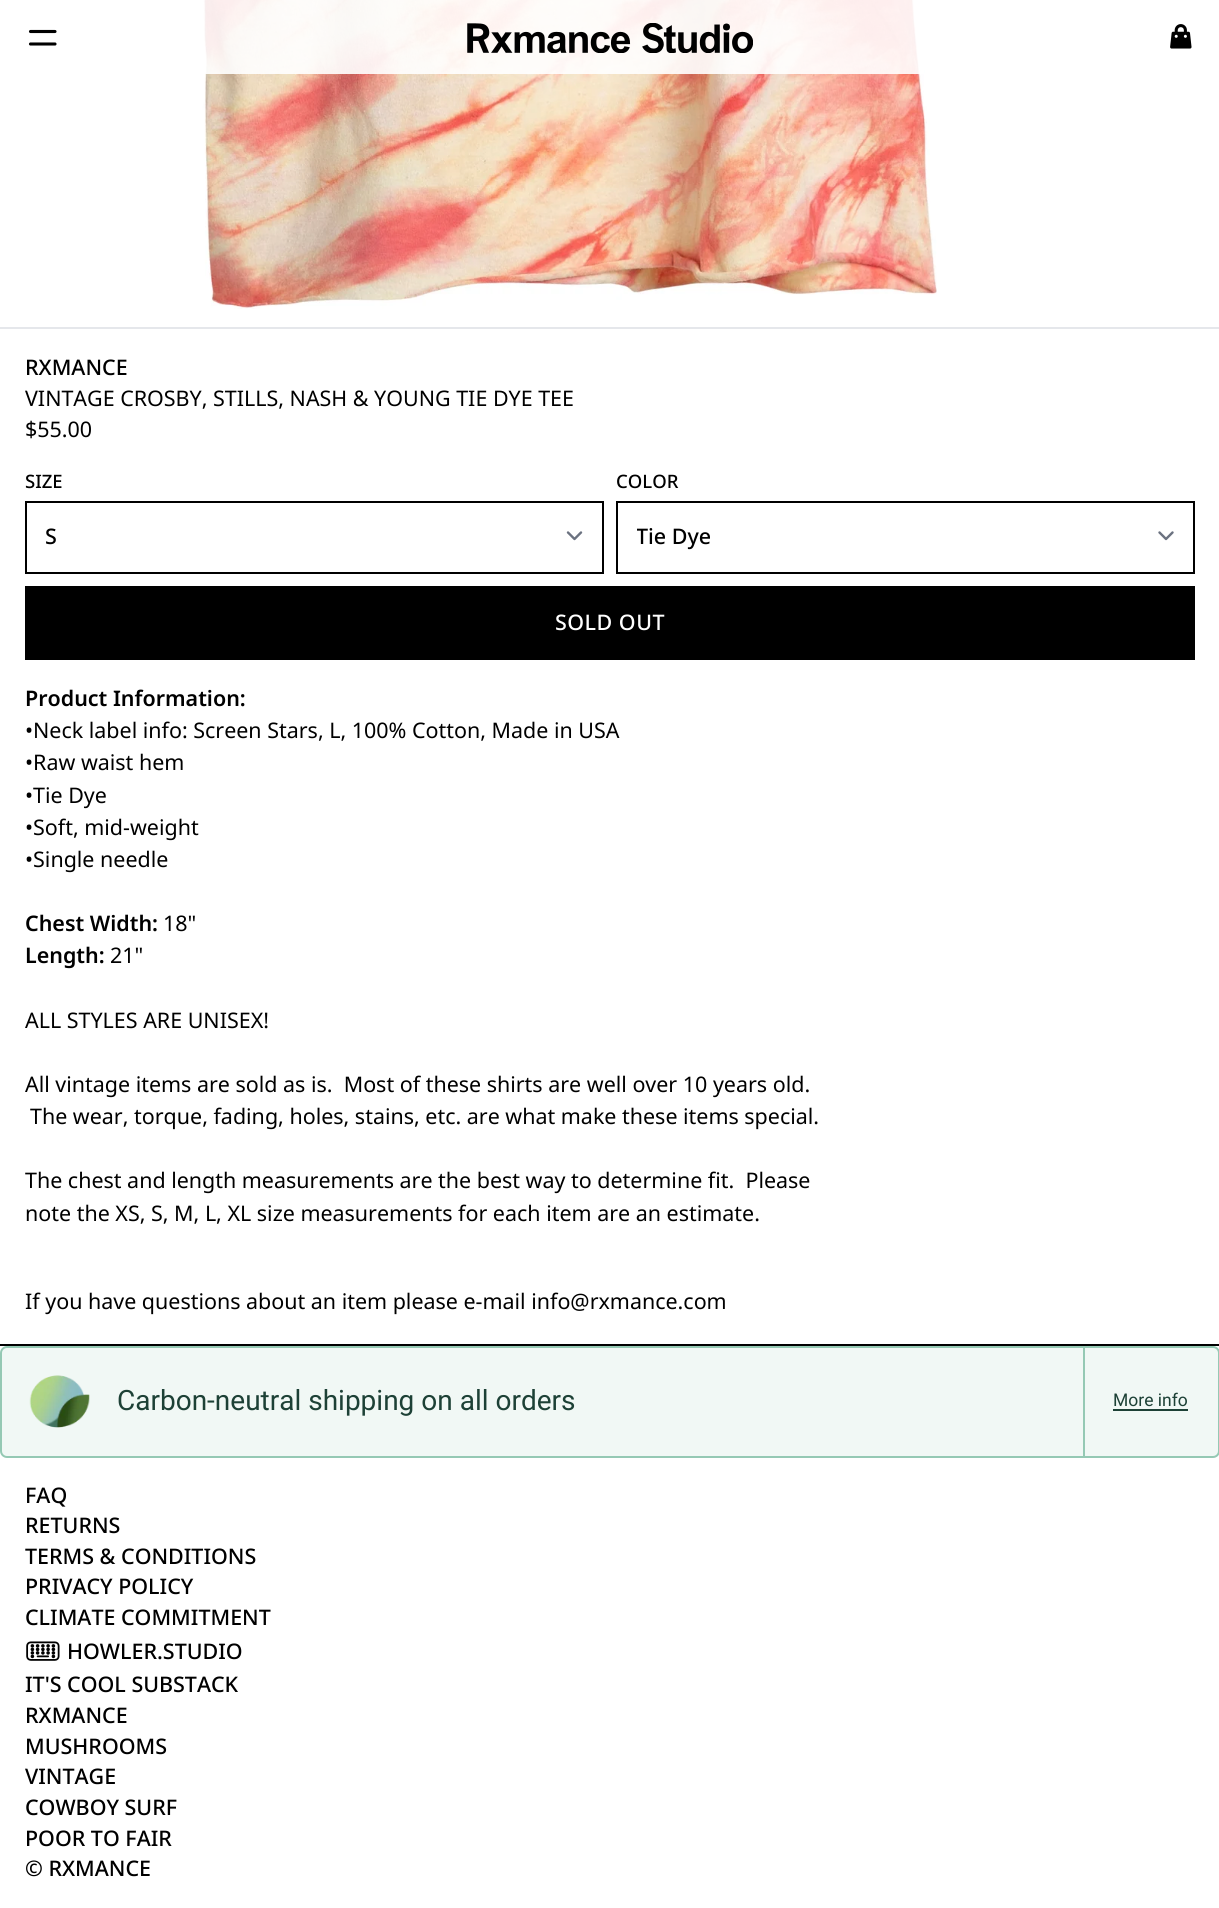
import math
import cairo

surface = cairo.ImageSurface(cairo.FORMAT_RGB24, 1219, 1908)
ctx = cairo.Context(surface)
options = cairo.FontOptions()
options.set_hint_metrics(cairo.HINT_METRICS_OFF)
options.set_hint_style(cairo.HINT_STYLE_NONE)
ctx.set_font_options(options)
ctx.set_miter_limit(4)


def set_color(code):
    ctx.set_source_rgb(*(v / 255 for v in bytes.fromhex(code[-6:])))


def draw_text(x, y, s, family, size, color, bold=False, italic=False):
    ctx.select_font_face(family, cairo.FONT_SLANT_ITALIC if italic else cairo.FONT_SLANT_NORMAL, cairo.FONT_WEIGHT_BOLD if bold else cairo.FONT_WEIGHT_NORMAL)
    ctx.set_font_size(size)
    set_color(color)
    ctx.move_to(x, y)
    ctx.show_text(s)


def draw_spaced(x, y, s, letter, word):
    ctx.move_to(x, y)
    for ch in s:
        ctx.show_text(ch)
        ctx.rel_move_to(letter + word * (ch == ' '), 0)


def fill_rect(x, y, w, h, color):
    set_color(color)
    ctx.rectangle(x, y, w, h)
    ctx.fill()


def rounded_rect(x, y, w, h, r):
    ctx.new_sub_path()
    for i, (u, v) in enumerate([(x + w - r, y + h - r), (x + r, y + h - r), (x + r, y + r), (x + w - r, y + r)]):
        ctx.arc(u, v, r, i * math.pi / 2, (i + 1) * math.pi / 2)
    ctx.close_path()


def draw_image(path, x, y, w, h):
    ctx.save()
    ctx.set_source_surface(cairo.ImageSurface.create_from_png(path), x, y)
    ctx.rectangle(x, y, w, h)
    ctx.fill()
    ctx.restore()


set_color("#ffffff")
ctx.paint()
draw_image("assets/img3.png", 202, 0, 735, 309)
ctx.set_source_rgba(1, 1, 1, 0.9)
ctx.rectangle(202, 0, 722, 74)
ctx.fill()
ctx.new_path()
ctx.move_to(30.5, 31.5)
ctx.line_to(55, 31.5)
ctx.move_to(30.5, 44)
ctx.line_to(55, 44)
set_color("#000000")
ctx.set_line_width(3.1)
ctx.set_line_cap(cairo.LINE_CAP_ROUND)
ctx.set_line_join(cairo.LINE_JOIN_ROUND)
ctx.stroke()
draw_image("assets/img1.png", 467, 23, 286, 30)
draw_image("assets/img2.png", 1170, 24, 22, 25)
fill_rect(0, 327, 1219, 2, "#e5e7eb")
fill_rect(0, 1344, 1219, 2, "#000000")
draw_text(25, 375, "RXMANCE", "Noto Sans Medium", 21.45, "#000000")
draw_text(25, 406, "VINTAGE CROSBY, STILLS, NASH & YOUNG TIE DYE TEE", "Noto Sans", 21.45, "#000000")
draw_text(25, 437, "$55.00", "Noto Sans", 21.45, "#000000")
draw_text(25, 488, "SIZE", "Noto Sans Medium", 18.5, "#000000")
ctx.new_path()
ctx.move_to(568, 532.5)
ctx.line_to(574.5, 539)
ctx.line_to(581, 532.5)
set_color("#6b7280")
ctx.set_line_width(2.4)
ctx.stroke()
ctx.rectangle(26, 502, 577, 71)
set_color("#000000")
ctx.set_line_width(2)
ctx.set_line_cap(cairo.LINE_CAP_BUTT)
ctx.set_line_join(cairo.LINE_JOIN_MITER)
ctx.stroke()
ctx.save()
ctx.rectangle(46, 522, 539, 29)
ctx.clip()
draw_text(45, 544, "S", "Noto Sans Medium", 21.45, "#000000")
ctx.restore()
draw_text(616, 488, "COLOR", "Noto Sans Medium", 18.5, "#000000")
ctx.new_path()
ctx.move_to(1159.5, 532.5)
ctx.line_to(1166, 539)
ctx.line_to(1172.5, 532.5)
set_color("#6b7280")
ctx.set_line_width(2.4)
ctx.set_line_cap(cairo.LINE_CAP_ROUND)
ctx.set_line_join(cairo.LINE_JOIN_ROUND)
ctx.stroke()
ctx.rectangle(617, 502, 577, 71)
set_color("#000000")
ctx.set_line_width(2)
ctx.set_line_cap(cairo.LINE_CAP_BUTT)
ctx.set_line_join(cairo.LINE_JOIN_MITER)
ctx.stroke()
ctx.save()
ctx.rectangle(637, 522, 539, 29)
ctx.clip()
draw_text(636, 544, "Tie Dye", "Noto Sans Medium", 21.45, "#000000")
ctx.restore()
fill_rect(25, 586, 1170, 74, "#000000")
ctx.set_font_size(21.45)
set_color("#ffffff")
draw_spaced(555, 630, "SOLD OUT", 0.5, 0)
draw_text(25, 706, "Product Information:", "Noto Sans SemiBold", 21.45, "#000000")
draw_text(25, 738, "•Neck label info: Screen Stars, L, 100% Cotton, Made in USA", "Noto Sans", 21.45, "#000000")
draw_text(25, 770, "•Raw waist hem", "Noto Sans", 21.45, "#000000")
draw_text(25, 803, "•Tie Dye", "Noto Sans", 21.45, "#000000")
draw_text(25, 835, "•Soft, mid-weight", "Noto Sans", 21.45, "#000000")
draw_text(25, 867, "•Single needle", "Noto Sans", 21.45, "#000000")
draw_text(25, 931, "Chest Width:", "Noto Sans SemiBold", 21.45, "#000000")
draw_text(163, 931, "18\"", "Noto Sans", 21.45, "#000000")
draw_text(25, 963, "Length:", "Noto Sans SemiBold", 21.45, "#000000")
draw_text(110, 963, "21\"", "Noto Sans", 21.45, "#000000")
draw_text(25, 1028, "ALL STYLES ARE UNISEX!", "Noto Sans", 21.45, "#000000")
draw_text(25, 1092, "All vintage items are sold as is.  Most of these shirts are well over 10 years old.", "Noto Sans", 21.45, "#000000")
draw_text(30, 1124, "The wear, torque, fading, holes, stains, etc. are what make these items special.", "Noto Sans", 21.45, "#000000")
draw_text(25, 1188, "The chest and length measurements are the best way to determine fit.  Please", "Noto Sans", 21.45, "#000000")
draw_text(25, 1221, "note the XS, S, M, L, XL size measurements for each item are an estimate.", "Noto Sans", 21.45, "#000000")
draw_text(25, 1309, "If you have questions about an item please e-mail info@rxmance.com", "Noto Sans", 21.45, "#000000")
set_color("#f1f8f5")
rounded_rect(1, 1347, 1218, 110, 6)
ctx.fill_preserve()
set_color("#95c9b4")
ctx.stroke()
fill_rect(1083, 1348, 2, 108, "#95c9b4")
draw_image("assets/img4.png", 29, 1375, 61, 53)
draw_text(117, 1410, "Carbon-neutral shipping on all orders", "Roboto", 28, "#1d4136")
draw_text(1113, 1406, "More info", "Roboto", 17.5, "#1d4136")
fill_rect(1113, 1409, 75, 2, "#1d4136")
draw_text(25, 1503, "FAQ", "Noto Sans Medium", 21.45, "#000000")
draw_text(25, 1533, "RETURNS", "Noto Sans Medium", 21.45, "#000000")
draw_text(25, 1564, "TERMS & CONDITIONS", "Noto Sans Medium", 21.45, "#000000")
draw_text(25, 1594, "PRIVACY POLICY", "Noto Sans Medium", 21.45, "#000000")
draw_text(25, 1625, "CLIMATE COMMITMENT", "Noto Sans Medium", 21.45, "#000000")
draw_image("assets/img5.png", 26, 1641, 34, 20)
draw_text(67, 1659, "HOWLER.STUDIO", "Noto Sans Medium", 21.45, "#000000")
draw_text(25, 1692, "IT'S COOL SUBSTACK", "Noto Sans Medium", 21.45, "#000000")
draw_text(25, 1723, "RXMANCE", "Noto Sans Medium", 21.45, "#000000")
draw_text(25, 1754, "MUSHROOMS", "Noto Sans Medium", 21.45, "#000000")
draw_text(25, 1784, "VINTAGE", "Noto Sans Medium", 21.45, "#000000")
draw_text(25, 1815, "COWBOY SURF", "Noto Sans Medium", 21.45, "#000000")
draw_text(25, 1846, "POOR TO FAIR", "Noto Sans Medium", 21.45, "#000000")
draw_text(25, 1876, "© RXMANCE", "Noto Sans Medium", 21.45, "#000000")
surface.write_to_png("output.png")
